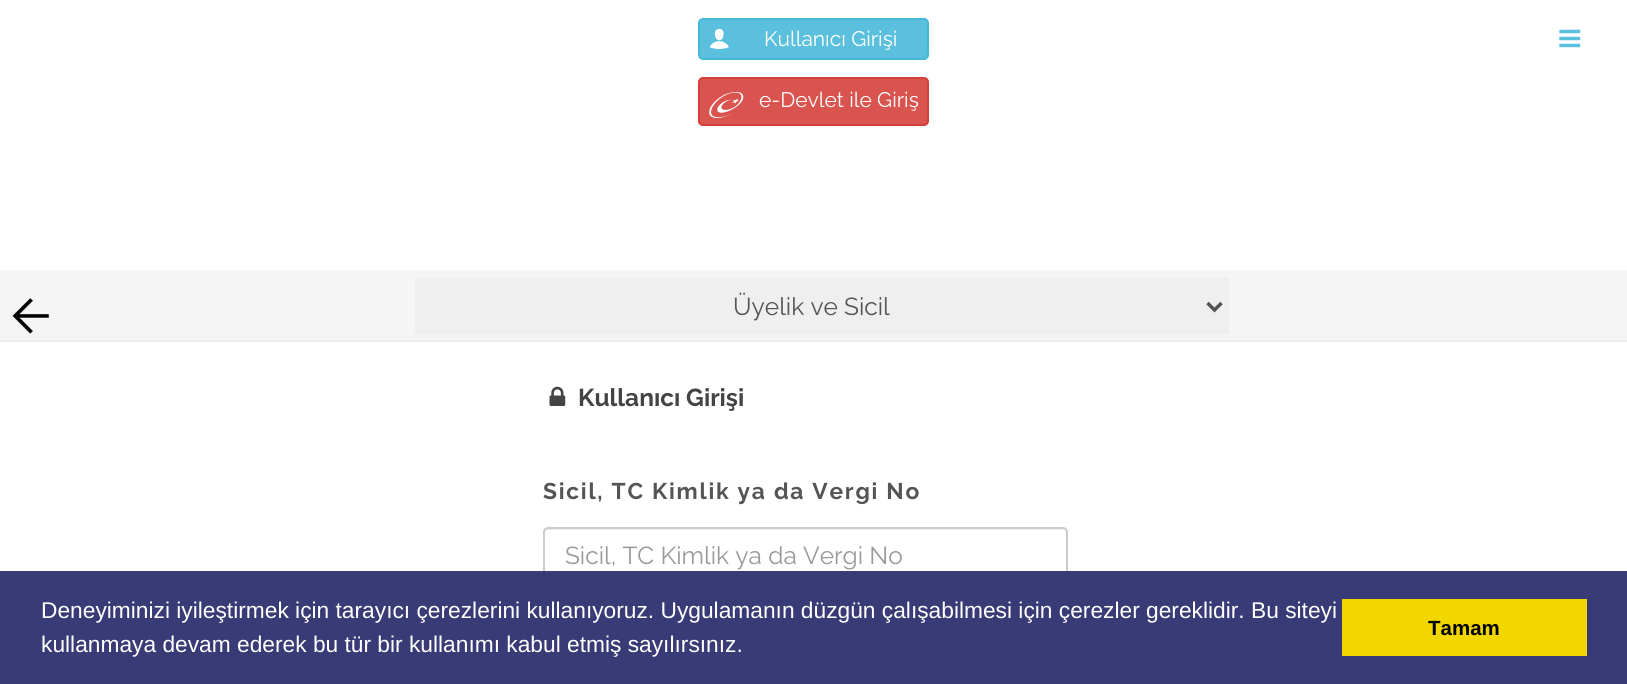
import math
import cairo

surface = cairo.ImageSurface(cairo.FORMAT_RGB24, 1627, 684)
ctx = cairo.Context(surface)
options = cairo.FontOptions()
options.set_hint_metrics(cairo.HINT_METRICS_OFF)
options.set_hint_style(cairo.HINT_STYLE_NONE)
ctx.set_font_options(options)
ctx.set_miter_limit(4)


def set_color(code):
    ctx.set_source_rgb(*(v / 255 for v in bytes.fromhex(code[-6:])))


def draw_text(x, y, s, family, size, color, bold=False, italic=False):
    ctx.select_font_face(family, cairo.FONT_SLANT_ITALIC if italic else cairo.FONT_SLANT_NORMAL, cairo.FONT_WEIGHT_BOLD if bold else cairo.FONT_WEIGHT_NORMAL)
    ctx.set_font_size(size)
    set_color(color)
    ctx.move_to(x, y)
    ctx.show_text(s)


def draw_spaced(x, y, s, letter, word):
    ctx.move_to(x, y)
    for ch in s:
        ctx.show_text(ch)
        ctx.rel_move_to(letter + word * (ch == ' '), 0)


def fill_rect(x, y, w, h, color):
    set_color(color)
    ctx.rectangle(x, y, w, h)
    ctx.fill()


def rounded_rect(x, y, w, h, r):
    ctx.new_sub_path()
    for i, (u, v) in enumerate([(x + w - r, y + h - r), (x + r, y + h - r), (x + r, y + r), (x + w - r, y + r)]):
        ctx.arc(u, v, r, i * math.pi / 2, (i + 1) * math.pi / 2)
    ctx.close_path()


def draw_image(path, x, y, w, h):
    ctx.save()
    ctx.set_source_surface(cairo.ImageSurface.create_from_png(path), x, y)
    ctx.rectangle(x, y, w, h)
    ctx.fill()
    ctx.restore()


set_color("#ffffff")
ctx.paint()
fill_rect(0, 270, 1627, 70, "#f5f5f5")
set_color("#5bc0de")
rounded_rect(699, 19, 229, 40, 4)
ctx.fill_preserve()
set_color("#46b8da")
ctx.stroke()
draw_image("assets/img1.png", 709, 28, 20, 21)
draw_text(764, 46, "Kullanıcı Girişi", "Raleway", 21, "#ffffff")
draw_image("assets/img2.png", 1559, 29, 22, 19)
set_color("#d9534f")
rounded_rect(699, 78, 229, 47, 4)
ctx.fill_preserve()
set_color("#d43f3a")
ctx.stroke()
draw_image("assets/img3.png", 709, 92, 35, 26)
draw_text(759, 107, "e-Devlet ile Giriş", "Raleway", 21, "#ffffff")
fill_rect(0, 340, 1627, 2, "#eeeeee")
draw_image("assets/img4.png", 12, 298, 37, 36)
fill_rect(415, 278, 814, 56, "#efefef")
ctx.new_path()
ctx.move_to(1207.5, 303)
ctx.line_to(1214.5, 310)
ctx.line_to(1221.5, 303)
set_color("#555555")
ctx.set_line_width(3.5)
ctx.stroke()
draw_text(733, 315, "Üyelik ve Sicil", "Raleway", 24.5, "#555555")
draw_image("assets/img5.png", 549, 386, 17, 20)
draw_text(578, 406, "Kullanıcı Girişi", "Raleway", 24.5, "#444444", bold=True)
ctx.set_font_size(22.75)
set_color("#555555")
draw_spaced(543, 499, "Sicil, TC Kimlik ya da Vergi No", 1.75, 0)
set_color("#ececec")
ctx.new_path()
ctx.move_to(548, 530)
ctx.line_to(1062, 530)
ctx.curve_to(1064, 530, 1066, 532, 1066, 534)
ctx.line_to(1066, 533)
ctx.curve_to(1066, 531, 1064, 529, 1062, 529)
ctx.line_to(548, 529)
ctx.curve_to(546, 529, 544, 531, 544, 533)
ctx.line_to(544, 534)
ctx.curve_to(544, 532, 546, 530, 548, 530)
ctx.close_path()
ctx.fill()
rounded_rect(544, 528, 523, 57, 4)
set_color("#cccccc")
ctx.set_line_width(2)
ctx.stroke()
draw_text(565, 564, "Sicil, TC Kimlik ya da Vergi No", "Raleway", 24.5, "#999999")
fill_rect(0, 571, 1627, 113, "#383b75")
draw_text(41, 618, "Deneyiminizi iyileştirmek için tarayıcı çerezlerini kullanıyoruz. Uygulamanın düzgün çalışabilmesi için çerezler gereklidir. Bu siteyi", "Liberation Sans", 22.75, "#ffffff")
draw_text(41, 652, "kullanmaya devam ederek bu tür bir kullanımı kabul etmiş sayılırsınız.", "Liberation Sans", 22.75, "#ffffff")
fill_rect(1342, 599, 245, 57, "#f1d600")
draw_text(1428, 635, "Tamam", "Liberation Sans", 20.5, "#000000", bold=True)
surface.write_to_png("output.png")
